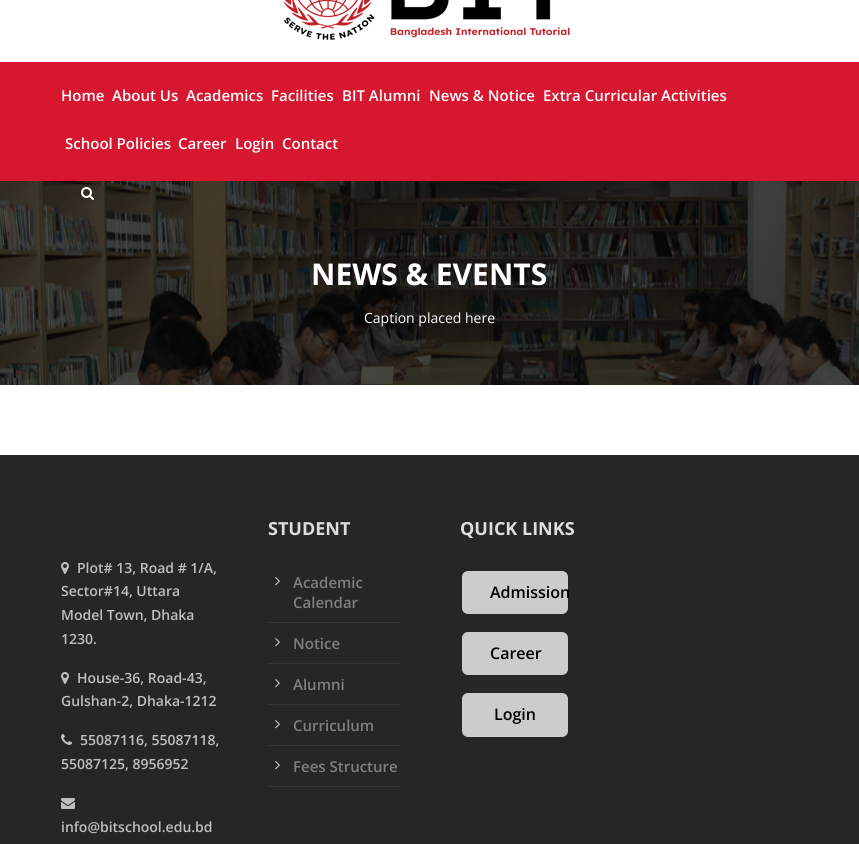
import math
import cairo

surface = cairo.ImageSurface(cairo.FORMAT_RGB24, 859, 844)
ctx = cairo.Context(surface)
options = cairo.FontOptions()
options.set_hint_metrics(cairo.HINT_METRICS_OFF)
options.set_hint_style(cairo.HINT_STYLE_NONE)
ctx.set_font_options(options)
ctx.set_miter_limit(4)


def set_color(code):
    ctx.set_source_rgb(*(v / 255 for v in bytes.fromhex(code[-6:])))


def draw_text(x, y, s, family, size, color, bold=False, italic=False):
    ctx.select_font_face(family, cairo.FONT_SLANT_ITALIC if italic else cairo.FONT_SLANT_NORMAL, cairo.FONT_WEIGHT_BOLD if bold else cairo.FONT_WEIGHT_NORMAL)
    ctx.set_font_size(size)
    set_color(color)
    ctx.move_to(x, y)
    ctx.show_text(s)


def fill_rect(x, y, w, h, color):
    set_color(color)
    ctx.rectangle(x, y, w, h)
    ctx.fill()


def rounded_rect(x, y, w, h, r):
    ctx.new_sub_path()
    for i, (u, v) in enumerate([(x + w - r, y + h - r), (x + r, y + h - r), (x + r, y + r), (x + w - r, y + r)]):
        ctx.arc(u, v, r, i * math.pi / 2, (i + 1) * math.pi / 2)
    ctx.close_path()


def draw_image(path, x, y, w, h):
    ctx.save()
    ctx.set_source_surface(cairo.ImageSurface.create_from_png(path), x, y)
    ctx.rectangle(x, y, w, h)
    ctx.fill()
    ctx.restore()


set_color("#ffffff")
ctx.paint()
draw_image("assets/img1.png", 283, 0, 287, 40)
fill_rect(0, 62, 859, 119, "#d7162f")
draw_text(61, 101, "Home", "Open Sans SemiBold", 15, "#ffffff")
draw_text(112, 101, "About Us", "Open Sans SemiBold", 15, "#ffffff")
draw_text(186, 101, "Academics", "Open Sans SemiBold", 15, "#ffffff")
draw_text(271, 101, "Facilities", "Open Sans SemiBold", 15, "#ffffff")
draw_text(342, 101, "BIT Alumni", "Open Sans SemiBold", 15, "#ffffff")
draw_text(429, 101, "News & Notice", "Open Sans SemiBold", 15, "#ffffff")
draw_text(543, 101, "Extra Curricular Activities", "Open Sans SemiBold", 15, "#ffffff")
draw_text(65, 149, "School Policies", "Open Sans SemiBold", 15, "#ffffff")
draw_text(178, 149, "Career", "Open Sans SemiBold", 15, "#ffffff")
draw_text(235, 149, "Login", "Open Sans SemiBold", 15, "#ffffff")
draw_text(282, 149, "Contact", "Open Sans SemiBold", 15, "#ffffff")
draw_image("assets/img3.png", 0, 181, 859, 204)
draw_image("assets/img2.png", 81, 187, 13, 13)
draw_text(311, 285, "NEWS & EVENTS", "Open Sans", 30, "#ffffff", bold=True)
draw_text(364, 323, "Caption placed here", "Open Sans", 14, "#ffffff")
fill_rect(0, 455, 859, 389, "#262626")
draw_image("assets/img4.png", 61, 562, 8, 12)
draw_text(77, 573, "Plot# 13, Road # 1/A,", "Open Sans SemiBold", 14, "#bfbfbf")
draw_text(61, 596, "Sector#14, Uttara", "Open Sans SemiBold", 14, "#bfbfbf")
draw_text(61, 620, "Model Town, Dhaka", "Open Sans SemiBold", 14, "#bfbfbf")
draw_text(61, 644, "1230.", "Open Sans SemiBold", 14, "#bfbfbf")
draw_image("assets/img4.png", 61, 672, 8, 12)
draw_text(77, 683, "House-36, Road-43,", "Open Sans SemiBold", 14, "#bfbfbf")
draw_text(61, 706, "Gulshan-2, Dhaka-1212", "Open Sans SemiBold", 14, "#bfbfbf")
draw_image("assets/img5.png", 61, 734, 11, 11)
draw_text(80, 745, "55087116, 55087118,", "Open Sans SemiBold", 14, "#bfbfbf")
draw_text(61, 769, "55087125, 8956952", "Open Sans SemiBold", 14, "#bfbfbf")
draw_image("assets/img6.png", 61, 798, 14, 11)
draw_text(61, 832, "info@bitschool.edu.bd", "Open Sans SemiBold", 14, "#bfbfbf")
draw_text(268, 535, "STUDENT", "Open Sans", 18, "#dddddd", bold=True)
fill_rect(268, 622, 132, 1, "#363636")
draw_image("assets/img7.png", 275, 577, 5, 9)
draw_text(293, 588, "Academic", "Open Sans SemiBold", 15, "#7f7f7f")
draw_text(293, 608, "Calendar", "Open Sans SemiBold", 15, "#7f7f7f")
fill_rect(268, 663, 132, 1, "#363636")
draw_image("assets/img7.png", 275, 638, 5, 9)
draw_text(293, 649, "Notice", "Open Sans SemiBold", 15, "#7f7f7f")
fill_rect(268, 704, 132, 1, "#363636")
draw_image("assets/img7.png", 275, 679, 5, 9)
draw_text(293, 690, "Alumni", "Open Sans SemiBold", 15, "#7f7f7f")
fill_rect(268, 745, 132, 1, "#363636")
draw_image("assets/img7.png", 275, 720, 5, 9)
draw_text(293, 731, "Curriculum", "Open Sans SemiBold", 15, "#7f7f7f")
fill_rect(268, 786, 132, 1, "#363636")
draw_image("assets/img7.png", 275, 761, 5, 9)
draw_text(293, 772, "Fees Structure", "Open Sans SemiBold", 15, "#7f7f7f")
draw_text(460, 535, "QUICK LINKS", "Open Sans", 18, "#dddddd", bold=True)
set_color("#cccccc")
rounded_rect(462, 571, 106, 43, 6)
ctx.fill()
draw_text(490, 598, "Admission", "Open Sans SemiBold", 16, "#000000")
set_color("#cccccc")
rounded_rect(462, 632, 106, 43, 6)
ctx.fill()
draw_text(490, 659, "Career", "Open Sans SemiBold", 16, "#000000")
set_color("#cccccc")
rounded_rect(462, 693, 106, 44, 6)
ctx.fill()
draw_text(494, 720, "Login", "Open Sans SemiBold", 16, "#000000")
surface.write_to_png("output.png")
